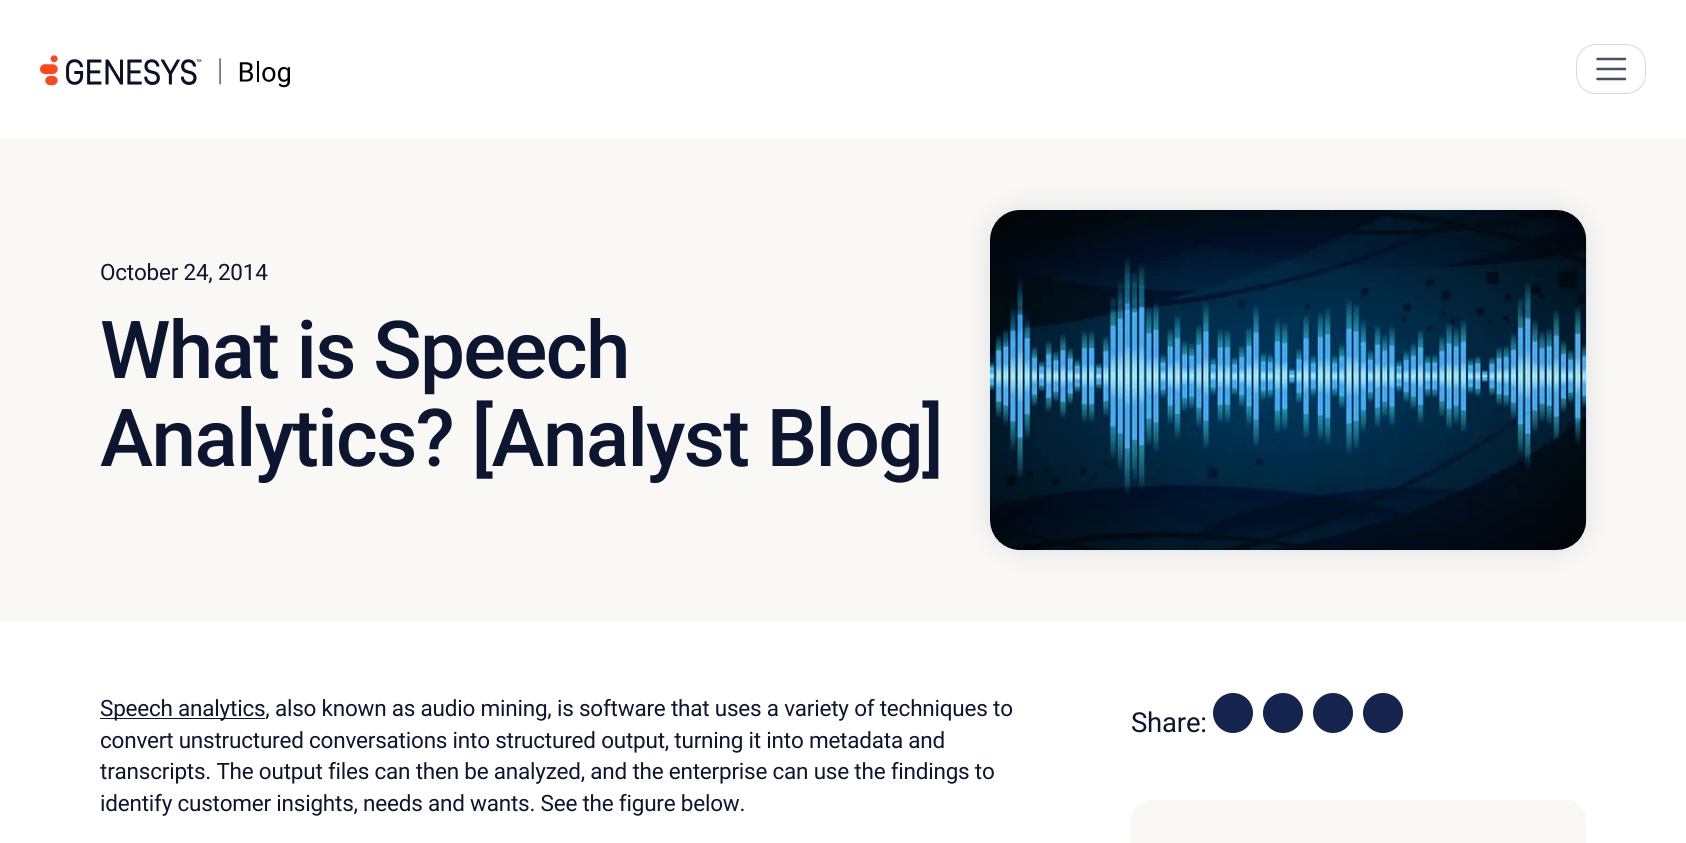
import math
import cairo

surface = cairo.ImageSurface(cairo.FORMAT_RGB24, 1686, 843)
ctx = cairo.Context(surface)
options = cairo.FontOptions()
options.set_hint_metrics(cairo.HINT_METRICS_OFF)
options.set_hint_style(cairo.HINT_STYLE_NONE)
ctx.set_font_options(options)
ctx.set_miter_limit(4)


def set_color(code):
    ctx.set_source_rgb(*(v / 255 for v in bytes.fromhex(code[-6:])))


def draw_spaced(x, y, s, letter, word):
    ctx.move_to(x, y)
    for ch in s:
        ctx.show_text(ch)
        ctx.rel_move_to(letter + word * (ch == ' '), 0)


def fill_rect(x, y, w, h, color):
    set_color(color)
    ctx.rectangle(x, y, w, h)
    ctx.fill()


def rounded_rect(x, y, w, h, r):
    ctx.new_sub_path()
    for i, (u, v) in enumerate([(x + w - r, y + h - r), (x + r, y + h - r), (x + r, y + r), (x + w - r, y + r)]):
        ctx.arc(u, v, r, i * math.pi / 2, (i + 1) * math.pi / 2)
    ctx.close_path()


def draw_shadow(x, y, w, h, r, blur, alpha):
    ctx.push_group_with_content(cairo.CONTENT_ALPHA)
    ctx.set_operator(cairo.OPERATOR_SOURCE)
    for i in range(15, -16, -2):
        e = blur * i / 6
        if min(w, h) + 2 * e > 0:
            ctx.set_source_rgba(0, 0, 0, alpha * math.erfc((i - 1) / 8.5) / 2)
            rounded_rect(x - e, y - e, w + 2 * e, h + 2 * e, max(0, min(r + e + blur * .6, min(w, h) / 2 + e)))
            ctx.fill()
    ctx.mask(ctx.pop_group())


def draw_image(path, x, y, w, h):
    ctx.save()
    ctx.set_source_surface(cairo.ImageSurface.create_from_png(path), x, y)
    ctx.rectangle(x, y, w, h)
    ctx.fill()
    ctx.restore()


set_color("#ffffff")
ctx.paint()
draw_image("assets/img1.png", 40, 55, 250, 33)
rounded_rect(1576.5, 44.5, 69, 49, 19.5)
set_color("#d9d9d9")
ctx.set_line_width(1)
ctx.stroke()
ctx.new_path()
ctx.move_to(1597.5, 59)
ctx.line_to(1625, 59)
ctx.move_to(1597.5, 69)
ctx.line_to(1625, 69)
ctx.move_to(1597.5, 79)
ctx.line_to(1625, 79)
set_color("#4a5064")
ctx.set_line_width(2.5)
ctx.set_line_cap(cairo.LINE_CAP_ROUND)
ctx.stroke()
fill_rect(0, 139, 1686, 482, "#f9f8f5")
ctx.select_font_face("Roboto")
ctx.set_font_size(22.5)
set_color("#0d1630")
draw_spaced(100, 280, "October 24, 2014", -0.22, 0)
ctx.select_font_face("Roboto Medium")
ctx.set_font_size(80)
draw_spaced(100, 378, "What is Speech", -1.6, 0)
draw_spaced(100, 466, "Analytics? [Analyst Blog]", -1.6, 0)
set_color("#455073")
draw_shadow(990, 210, 596, 340, 30, 12.5, 0.15)
draw_image("assets/img2.png", 990, 210, 597, 340)
fill_rect(100, 718, 165, 1, "#0d1630")
ctx.select_font_face("Roboto")
ctx.set_font_size(22.5)
draw_spaced(100, 716, "Speech analytics, also known as audio mining, is software that uses a variety of techniques to", -0.22, 0)
draw_spaced(100, 748, "convert unstructured conversations into structured output, turning it into metadata and", -0.22, 0)
draw_spaced(100, 779, "transcripts. The output files can then be analyzed, and the enterprise can use the findings to", -0.22, 0)
draw_spaced(100, 811, "identify customer insights, needs and wants. See the figure below.", -0.22, 0)
ctx.set_font_size(27.5)
draw_spaced(1131, 732, "Share:", -0.22, 0)
set_color("#152550")
ctx.new_path()
ctx.arc(1233, 713, 20, 0, 2 * math.pi)
ctx.fill()
ctx.arc(1283, 713, 20, 0, 2 * math.pi)
ctx.fill()
ctx.arc(1333, 713, 20, 0, 2 * math.pi)
ctx.fill()
ctx.arc(1383, 713, 20, 0, 2 * math.pi)
ctx.fill()
set_color("#f9f8f5")
rounded_rect(1131, 800, 455, 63, 20)
ctx.fill()
surface.write_to_png("output.png")
